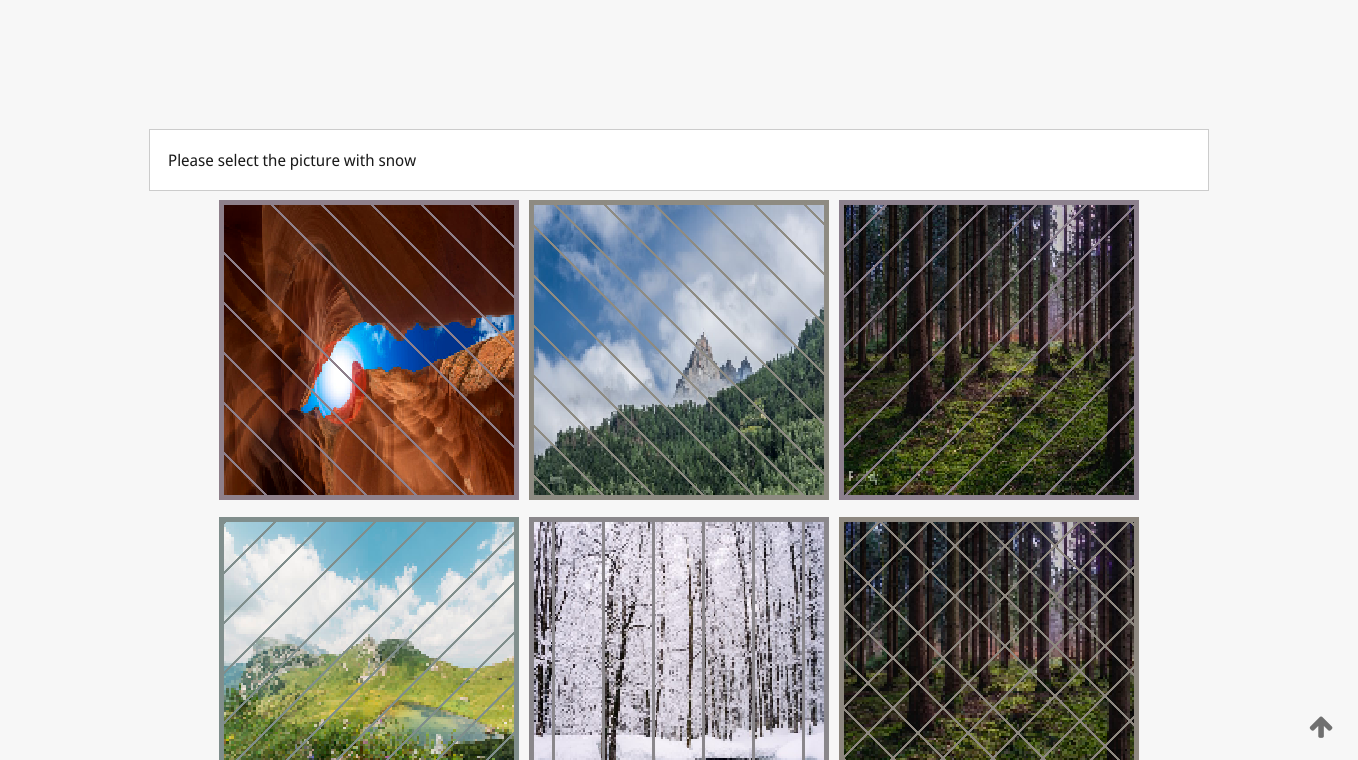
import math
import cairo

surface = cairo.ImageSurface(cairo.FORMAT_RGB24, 1358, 760)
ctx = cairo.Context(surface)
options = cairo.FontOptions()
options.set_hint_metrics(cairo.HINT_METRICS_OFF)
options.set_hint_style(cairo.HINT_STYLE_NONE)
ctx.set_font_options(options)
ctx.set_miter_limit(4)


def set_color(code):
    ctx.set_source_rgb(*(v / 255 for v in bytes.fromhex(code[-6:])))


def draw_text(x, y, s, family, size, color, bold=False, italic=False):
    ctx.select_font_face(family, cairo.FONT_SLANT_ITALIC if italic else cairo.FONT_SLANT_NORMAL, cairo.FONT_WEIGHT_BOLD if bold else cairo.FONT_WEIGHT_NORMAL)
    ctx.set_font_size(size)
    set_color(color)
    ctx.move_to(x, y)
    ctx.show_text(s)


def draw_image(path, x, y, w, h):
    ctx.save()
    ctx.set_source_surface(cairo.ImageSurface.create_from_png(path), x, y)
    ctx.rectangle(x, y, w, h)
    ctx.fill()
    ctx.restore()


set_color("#f7f7f7")
ctx.paint()
set_color("#ffffff")
ctx.rectangle(149.5, 129.5, 1059, 61)
ctx.fill_preserve()
set_color("#cccccc")
ctx.set_line_width(1)
ctx.stroke()
draw_text(168, 166, "Please select the picture with snow", "Noto Sans Display", 16, "#1a1a1a")
draw_image("assets/img1.png", 219, 200, 300, 300)
draw_image("assets/img2.png", 529, 200, 300, 300)
draw_image("assets/img3.png", 839, 200, 300, 300)
draw_image("assets/img4.png", 219, 517, 300, 243)
draw_image("assets/img5.png", 529, 517, 300, 243)
draw_image("assets/img6.png", 839, 517, 300, 243)
draw_image("assets/img7.png", 1309, 716, 24, 22)
surface.write_to_png("output.png")
